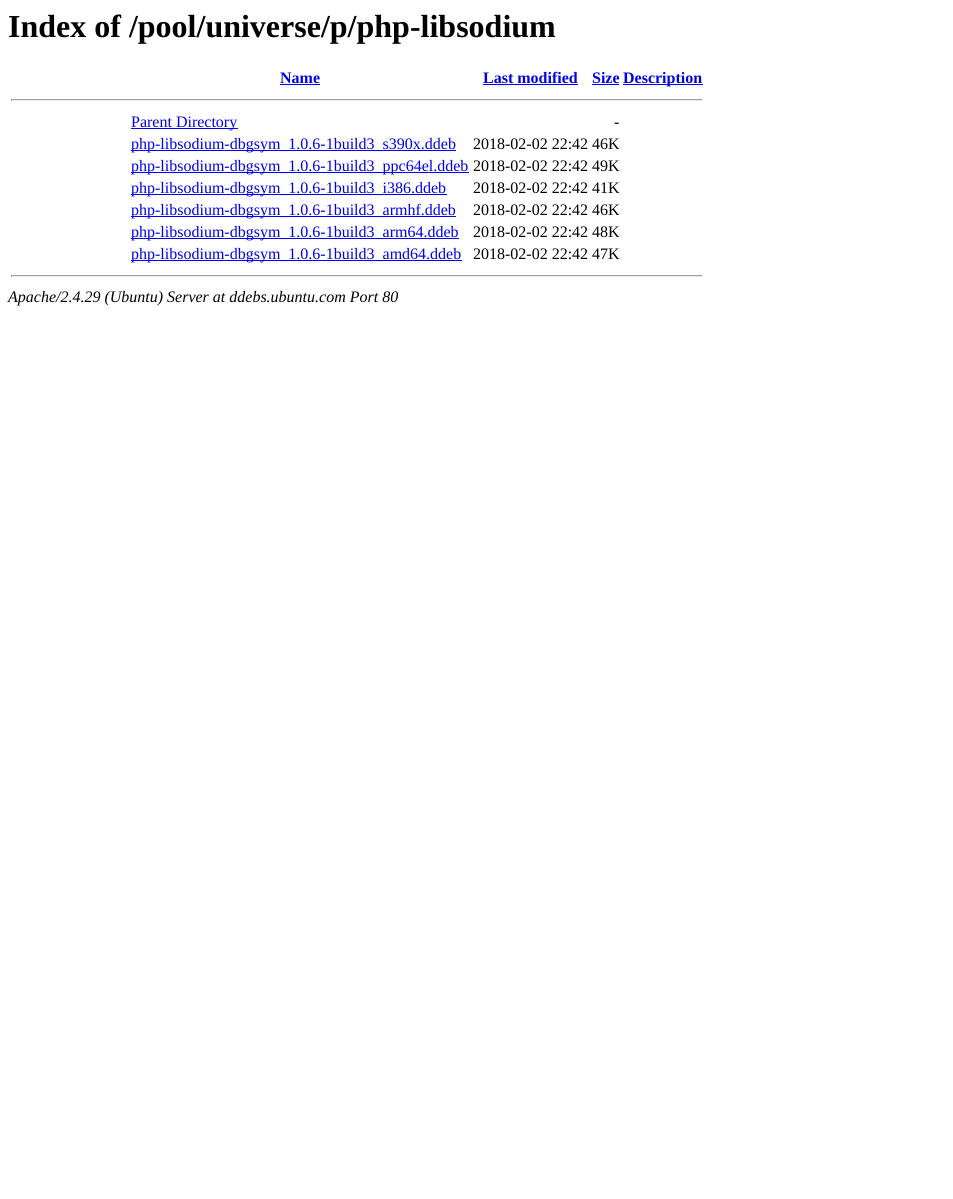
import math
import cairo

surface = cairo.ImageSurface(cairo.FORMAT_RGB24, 953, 1199)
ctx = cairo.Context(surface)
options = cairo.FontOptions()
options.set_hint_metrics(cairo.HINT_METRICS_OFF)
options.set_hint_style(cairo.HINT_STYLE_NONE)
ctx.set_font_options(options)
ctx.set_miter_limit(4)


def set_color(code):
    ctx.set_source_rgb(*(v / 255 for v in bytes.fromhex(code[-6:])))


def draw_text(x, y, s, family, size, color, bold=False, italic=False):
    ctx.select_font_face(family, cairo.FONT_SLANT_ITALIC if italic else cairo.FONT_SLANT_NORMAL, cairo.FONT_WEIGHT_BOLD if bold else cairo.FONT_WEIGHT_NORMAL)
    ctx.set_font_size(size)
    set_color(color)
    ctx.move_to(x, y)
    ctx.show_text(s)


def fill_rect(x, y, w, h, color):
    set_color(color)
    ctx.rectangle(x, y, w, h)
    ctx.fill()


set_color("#ffffff")
ctx.paint()
draw_text(8, 37, "Index of /pool/universe/p/php-libsodium", "Liberation Serif", 32, "#000000", bold=True)
draw_text(280, 83, "Name", "Liberation Serif", 16, "#0000ee", bold=True)
fill_rect(280, 84, 40, 1, "#0000ee")
draw_text(483, 83, "Last modified", "Liberation Serif", 16, "#0000ee", bold=True)
fill_rect(483, 84, 95, 1, "#0000ee")
draw_text(592, 83, "Size", "Liberation Serif", 16, "#0000ee", bold=True)
fill_rect(592, 84, 27, 1, "#0000ee")
fill_rect(623, 84, 80, 1, "#0000ee")
draw_text(623, 83, "Description", "Liberation Serif", 16, "#0000ee", bold=True)
fill_rect(11, 99, 692, 1, "#9f9f9f")
fill_rect(702, 99, 1, 2, "#eeeeee")
fill_rect(11, 100, 692, 1, "#eeeeee")
fill_rect(11, 99, 1, 2, "#9f9f9f")
fill_rect(131, 128, 107, 1, "#0000ee")
draw_text(131, 127, "Parent Directory", "Liberation Serif", 16, "#0000ee")
draw_text(614, 127, "-", "Liberation Serif", 16, "#000000")
fill_rect(131, 150, 325, 1, "#0000ee")
draw_text(131, 149, "php-libsodium-dbgsym_1.0.6-1build3_s390x.ddeb", "Liberation Serif", 16, "#0000ee")
draw_text(473, 149, "2018-02-02 22:42 46K", "Liberation Serif", 16, "#000000")
fill_rect(131, 172, 338, 1, "#0000ee")
draw_text(131, 171, "php-libsodium-dbgsym_1.0.6-1build3_ppc64el.ddeb", "Liberation Serif", 16, "#0000ee")
draw_text(473, 171, "2018-02-02 22:42 49K", "Liberation Serif", 16, "#000000")
fill_rect(131, 194, 316, 1, "#0000ee")
draw_text(131, 193, "php-libsodium-dbgsym_1.0.6-1build3_i386.ddeb", "Liberation Serif", 16, "#0000ee")
draw_text(473, 193, "2018-02-02 22:42 41K", "Liberation Serif", 16, "#000000")
fill_rect(131, 216, 325, 1, "#0000ee")
draw_text(131, 215, "php-libsodium-dbgsym_1.0.6-1build3_armhf.ddeb", "Liberation Serif", 16, "#0000ee")
draw_text(473, 215, "2018-02-02 22:42 46K", "Liberation Serif", 16, "#000000")
fill_rect(131, 238, 328, 1, "#0000ee")
draw_text(131, 237, "php-libsodium-dbgsym_1.0.6-1build3_arm64.ddeb", "Liberation Serif", 16, "#0000ee")
draw_text(473, 237, "2018-02-02 22:42 48K", "Liberation Serif", 16, "#000000")
fill_rect(131, 260, 331, 1, "#0000ee")
draw_text(131, 259, "php-libsodium-dbgsym_1.0.6-1build3_amd64.ddeb", "Liberation Serif", 16, "#0000ee")
draw_text(473, 259, "2018-02-02 22:42 47K", "Liberation Serif", 16, "#000000")
fill_rect(11, 275, 692, 1, "#9f9f9f")
fill_rect(702, 275, 1, 2, "#eeeeee")
fill_rect(11, 276, 692, 1, "#eeeeee")
fill_rect(11, 275, 1, 2, "#9f9f9f")
draw_text(8, 302, "Apache/2.4.29 (Ubuntu) Server at ddebs.ubuntu.com Port 80", "Liberation Serif", 16, "#000000", italic=True)
surface.write_to_png("output.png")
